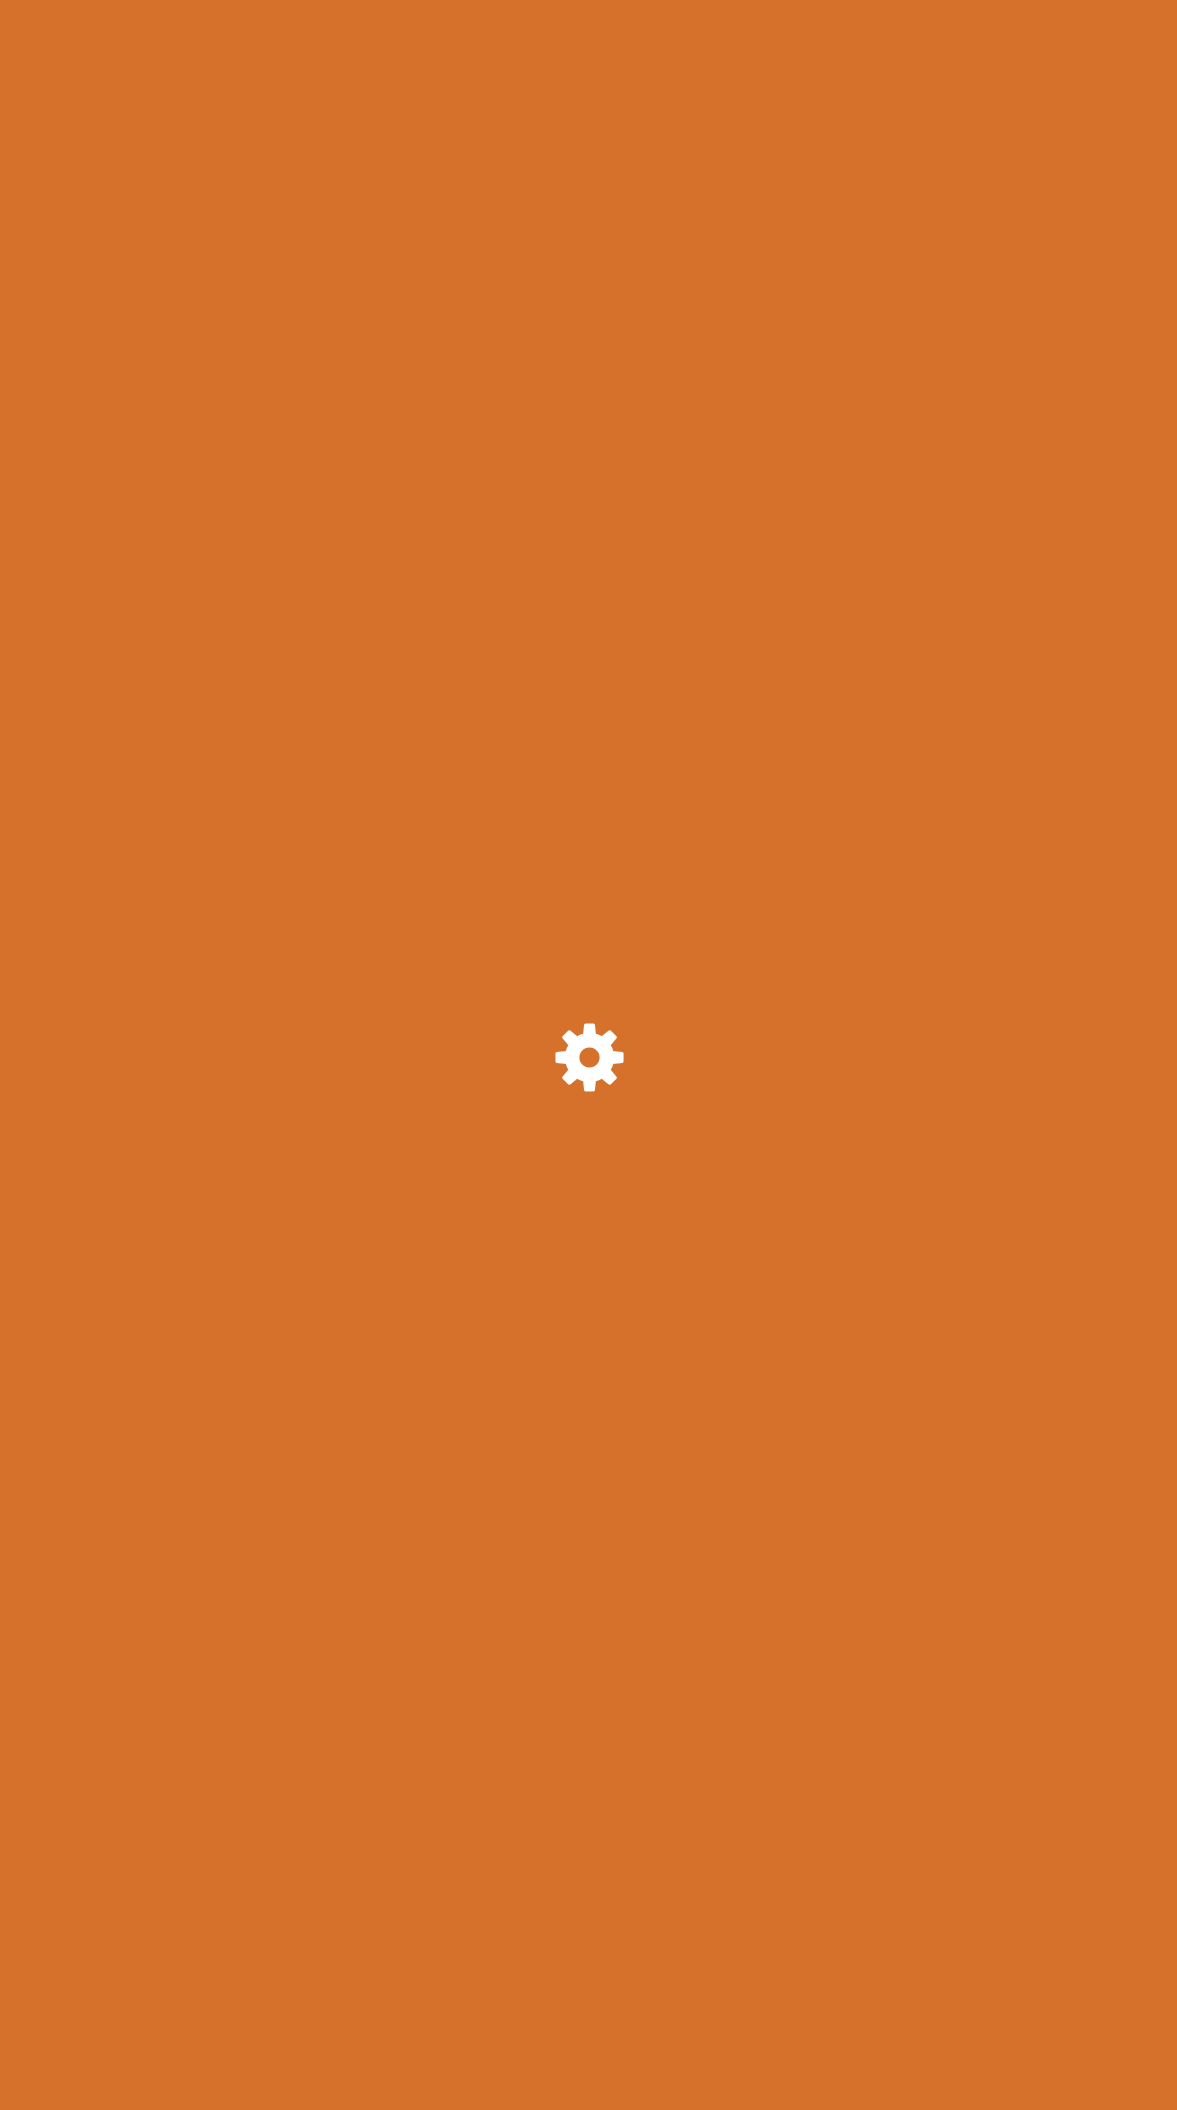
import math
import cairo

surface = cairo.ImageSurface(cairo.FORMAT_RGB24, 1177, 2110)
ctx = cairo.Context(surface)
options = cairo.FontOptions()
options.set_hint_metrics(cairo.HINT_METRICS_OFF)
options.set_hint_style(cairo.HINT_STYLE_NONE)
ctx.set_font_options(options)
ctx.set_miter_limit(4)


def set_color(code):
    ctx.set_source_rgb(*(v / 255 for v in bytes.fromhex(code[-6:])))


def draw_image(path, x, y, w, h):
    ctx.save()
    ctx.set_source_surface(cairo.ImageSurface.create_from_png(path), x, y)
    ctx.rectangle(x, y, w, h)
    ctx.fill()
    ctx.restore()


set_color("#d5712b")
ctx.paint()
draw_image("assets/img1.png", 0, 0, 1177, 2110)
draw_image("assets/img2.png", 217, 376, 746, 187)
draw_image("assets/img3.png", 233, 897, 714, 357)
draw_image("assets/img4.png", 555, 1023, 69, 69)
surface.write_to_png("output.png")
